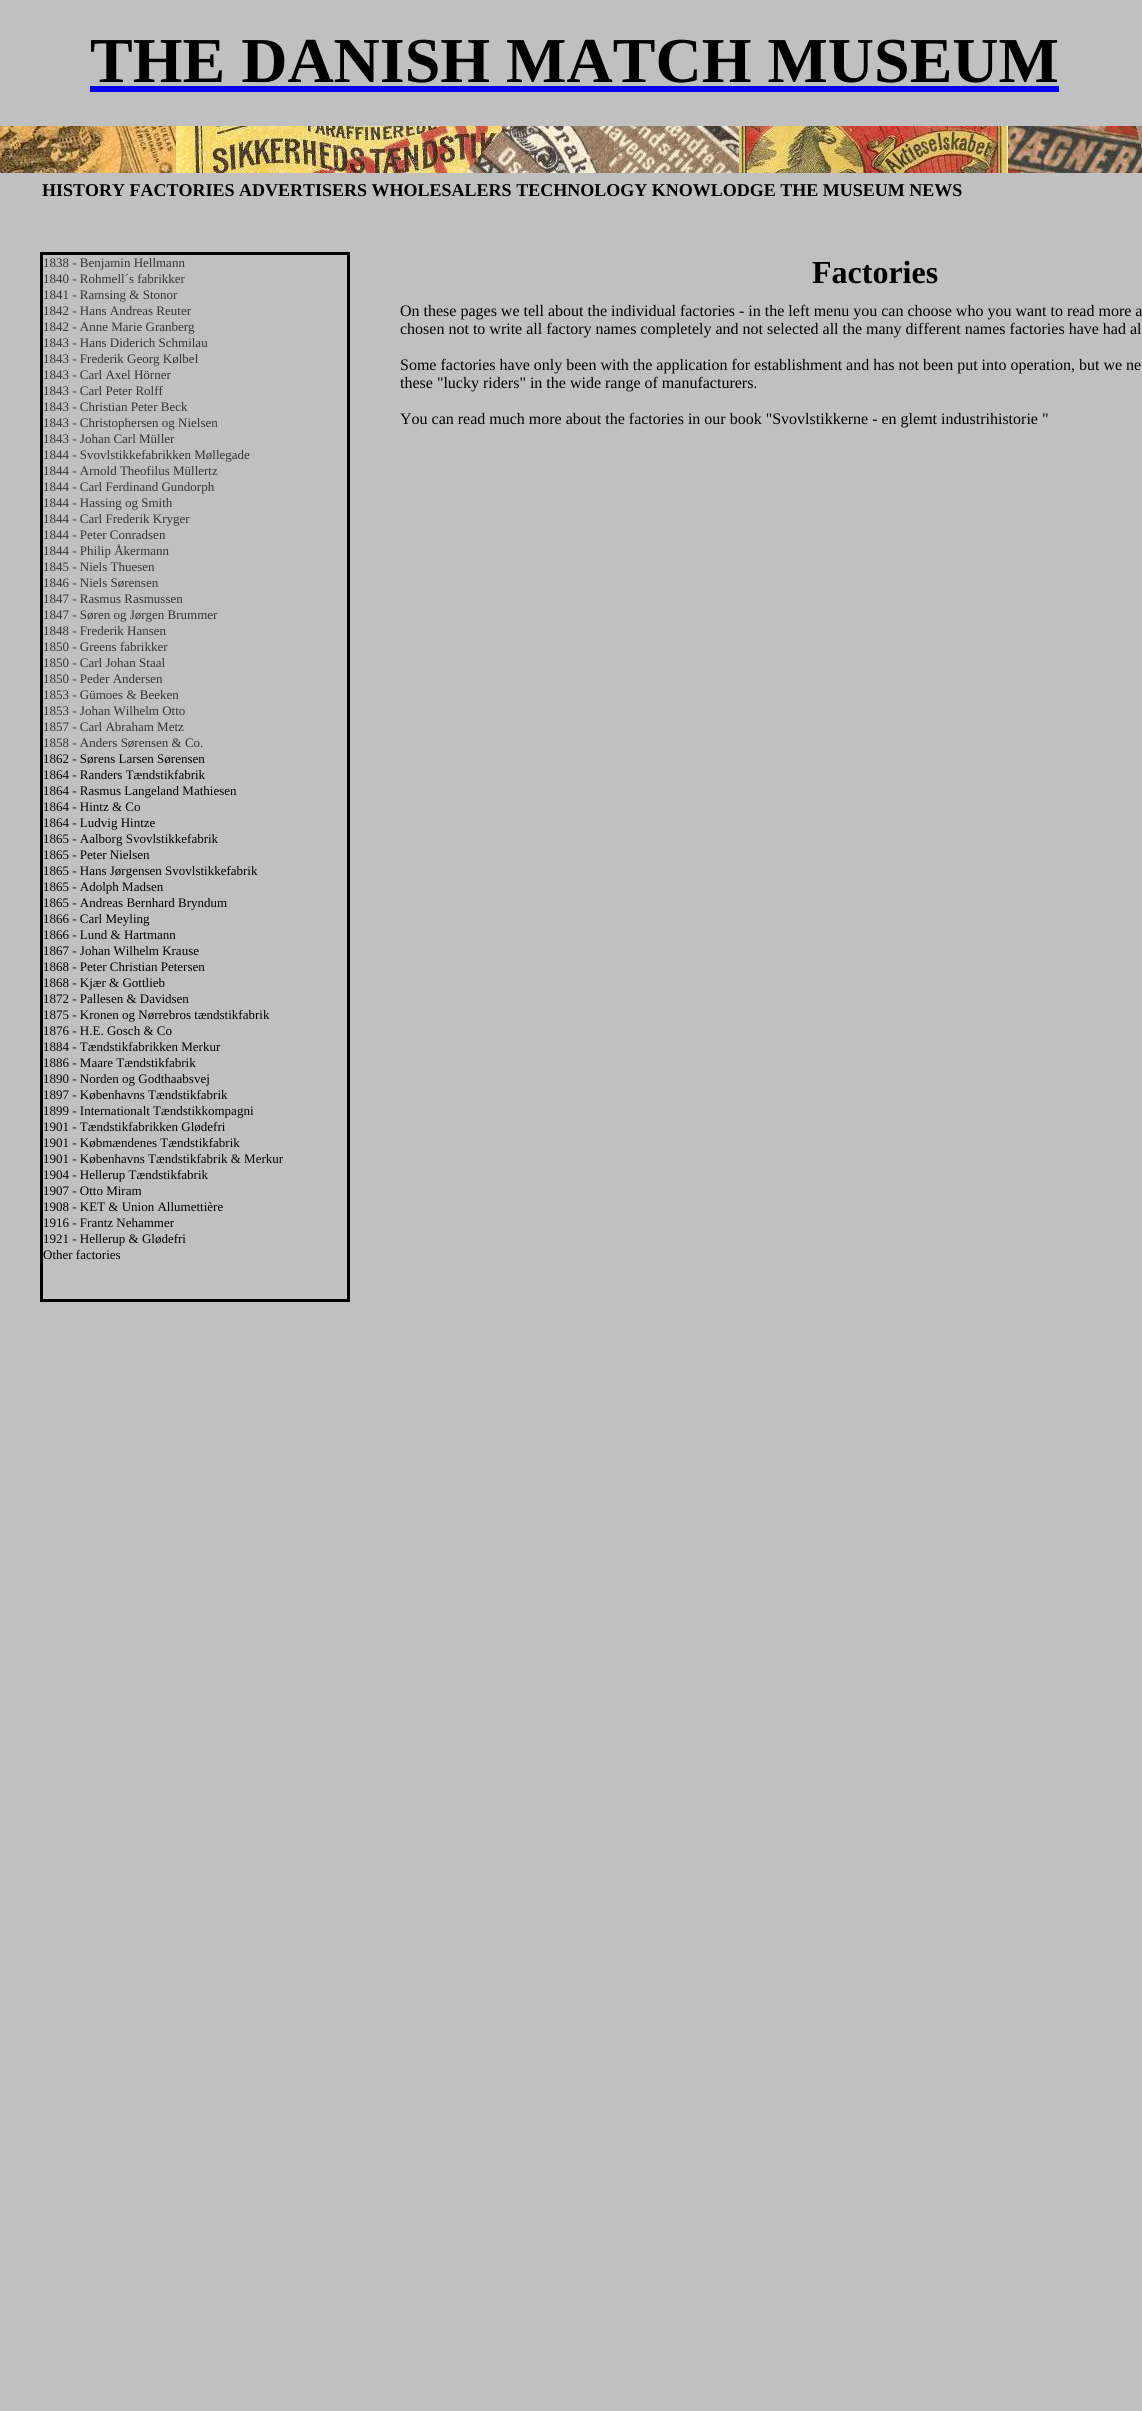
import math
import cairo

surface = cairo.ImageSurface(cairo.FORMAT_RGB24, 1142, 2411)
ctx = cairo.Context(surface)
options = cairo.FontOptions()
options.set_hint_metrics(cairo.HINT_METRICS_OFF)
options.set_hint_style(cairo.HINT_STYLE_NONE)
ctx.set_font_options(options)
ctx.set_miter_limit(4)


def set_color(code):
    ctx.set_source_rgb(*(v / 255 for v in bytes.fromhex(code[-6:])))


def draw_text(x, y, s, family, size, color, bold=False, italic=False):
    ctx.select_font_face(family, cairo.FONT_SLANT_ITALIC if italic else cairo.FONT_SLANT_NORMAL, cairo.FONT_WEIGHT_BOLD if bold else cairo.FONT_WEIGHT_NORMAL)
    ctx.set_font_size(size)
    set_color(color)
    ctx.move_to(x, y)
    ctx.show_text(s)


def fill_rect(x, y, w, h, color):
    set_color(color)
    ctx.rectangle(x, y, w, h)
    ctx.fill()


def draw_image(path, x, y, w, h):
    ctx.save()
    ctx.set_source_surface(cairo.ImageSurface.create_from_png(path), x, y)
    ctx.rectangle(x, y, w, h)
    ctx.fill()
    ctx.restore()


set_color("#c0c0c0")
ctx.paint()
draw_text(90, 82, "THE DANISH MATCH MUSEUM", "Liberation Serif", 64, "#000000", bold=True)
fill_rect(90, 86, 969, 6, "#0000ee")
draw_image("assets/img1.png", 0, 126, 1142, 47)
draw_text(42, 196, "HISTORY FACTORIES ADVERTISERS WHOLESALERS TECHNOLOGY KNOWLODGE THE MUSEUM NEWS", "Liberation Serif", 18, "#000000", bold=True)
ctx.rectangle(41.5, 253.5, 307, 1047)
ctx.set_line_width(3)
ctx.stroke()
draw_text(43, 267, "1838 - Benjamin Hellmann", "Liberation Serif", 13, "#333333")
draw_text(43, 283, "1840 - Rohmell´s fabrikker", "Liberation Serif", 13, "#333333")
draw_text(43, 299, "1841 - Ramsing & Stonor", "Liberation Serif", 13, "#333333")
draw_text(43, 315, "1842 - Hans Andreas Reuter", "Liberation Serif", 13, "#333333")
draw_text(43, 331, "1842 - Anne Marie Granberg", "Liberation Serif", 13, "#333333")
draw_text(43, 347, "1843 - Hans Diderich Schmilau", "Liberation Serif", 13, "#333333")
draw_text(43, 363, "1843 - Frederik Georg Kølbel", "Liberation Serif", 13, "#333333")
draw_text(43, 379, "1843 - Carl Axel Hörner", "Liberation Serif", 13, "#333333")
draw_text(43, 395, "1843 - Carl Peter Rolff", "Liberation Serif", 13, "#333333")
draw_text(43, 411, "1843 - Christian Peter Beck", "Liberation Serif", 13, "#333333")
draw_text(43, 427, "1843 - Christophersen og Nielsen", "Liberation Serif", 13, "#333333")
draw_text(43, 443, "1843 - Johan Carl Müller", "Liberation Serif", 13, "#333333")
draw_text(43, 459, "1844 - Svovlstikkefabrikken Møllegade", "Liberation Serif", 13, "#333333")
draw_text(43, 475, "1844 - Arnold Theofilus Müllertz", "Liberation Serif", 13, "#333333")
draw_text(43, 491, "1844 - Carl Ferdinand Gundorph", "Liberation Serif", 13, "#333333")
draw_text(43, 507, "1844 - Hassing og Smith", "Liberation Serif", 13, "#333333")
draw_text(43, 523, "1844 - Carl Frederik Kryger", "Liberation Serif", 13, "#333333")
draw_text(43, 539, "1844 - Peter Conradsen", "Liberation Serif", 13, "#333333")
draw_text(43, 555, "1844 - Philip Åkermann", "Liberation Serif", 13, "#333333")
draw_text(43, 571, "1845 - Niels Thuesen", "Liberation Serif", 13, "#333333")
draw_text(43, 587, "1846 - Niels Sørensen", "Liberation Serif", 13, "#333333")
draw_text(43, 603, "1847 - Rasmus Rasmussen", "Liberation Serif", 13, "#333333")
draw_text(43, 619, "1847 - Søren og Jørgen Brummer", "Liberation Serif", 13, "#333333")
draw_text(43, 635, "1848 - Frederik Hansen", "Liberation Serif", 13, "#333333")
draw_text(43, 651, "1850 - Greens fabrikker", "Liberation Serif", 13, "#333333")
draw_text(43, 667, "1850 - Carl Johan Staal", "Liberation Serif", 13, "#333333")
draw_text(43, 683, "1850 - Peder Andersen", "Liberation Serif", 13, "#333333")
draw_text(43, 699, "1853 - Gümoes & Beeken", "Liberation Serif", 13, "#333333")
draw_text(43, 715, "1853 - Johan Wilhelm Otto", "Liberation Serif", 13, "#333333")
draw_text(43, 731, "1857 - Carl Abraham Metz", "Liberation Serif", 13, "#333333")
draw_text(43, 747, "1858 - Anders Sørensen & Co.", "Liberation Serif", 13, "#333333")
draw_text(43, 763, "1862 - Sørens Larsen Sørensen", "Liberation Serif", 13, "#000000")
draw_text(43, 779, "1864 - Randers Tændstikfabrik", "Liberation Serif", 13, "#000000")
draw_text(43, 795, "1864 - Rasmus Langeland Mathiesen", "Liberation Serif", 13, "#000000")
draw_text(43, 811, "1864 - Hintz & Co", "Liberation Serif", 13, "#000000")
draw_text(43, 827, "1864 - Ludvig Hintze", "Liberation Serif", 13, "#000000")
draw_text(43, 843, "1865 - Aalborg Svovlstikkefabrik", "Liberation Serif", 13, "#000000")
draw_text(43, 859, "1865 - Peter Nielsen", "Liberation Serif", 13, "#000000")
draw_text(43, 875, "1865 - Hans Jørgensen Svovlstikkefabrik", "Liberation Serif", 13, "#000000")
draw_text(43, 891, "1865 - Adolph Madsen", "Liberation Serif", 13, "#000000")
draw_text(43, 907, "1865 - Andreas Bernhard Bryndum", "Liberation Serif", 13, "#000000")
draw_text(43, 923, "1866 - Carl Meyling", "Liberation Serif", 13, "#000000")
draw_text(43, 939, "1866 - Lund & Hartmann", "Liberation Serif", 13, "#000000")
draw_text(43, 955, "1867 - Johan Wilhelm Krause", "Liberation Serif", 13, "#000000")
draw_text(43, 971, "1868 - Peter Christian Petersen", "Liberation Serif", 13, "#000000")
draw_text(43, 987, "1868 - Kjær & Gottlieb", "Liberation Serif", 13, "#000000")
draw_text(43, 1003, "1872 - Pallesen & Davidsen", "Liberation Serif", 13, "#000000")
draw_text(43, 1019, "1875 - Kronen og Nørrebros tændstikfabrik", "Liberation Serif", 13, "#000000")
draw_text(43, 1035, "1876 - H.E. Gosch & Co", "Liberation Serif", 13, "#000000")
draw_text(43, 1051, "1884 - Tændstikfabrikken Merkur", "Liberation Serif", 13, "#000000")
draw_text(43, 1067, "1886 - Maare Tændstikfabrik", "Liberation Serif", 13, "#000000")
draw_text(43, 1083, "1890 - Norden og Godthaabsvej", "Liberation Serif", 13, "#000000")
draw_text(43, 1099, "1897 - Københavns Tændstikfabrik", "Liberation Serif", 13, "#000000")
draw_text(43, 1115, "1899 - Internationalt Tændstikkompagni", "Liberation Serif", 13, "#000000")
draw_text(43, 1131, "1901 - Tændstikfabrikken Glødefri", "Liberation Serif", 13, "#000000")
draw_text(43, 1147, "1901 - Købmændenes Tændstikfabrik", "Liberation Serif", 13, "#000000")
draw_text(43, 1163, "1901 - Københavns Tændstikfabrik & Merkur", "Liberation Serif", 13, "#000000")
draw_text(43, 1179, "1904 - Hellerup Tændstikfabrik", "Liberation Serif", 13, "#000000")
draw_text(43, 1195, "1907 - Otto Miram", "Liberation Serif", 13, "#000000")
draw_text(43, 1211, "1908 - KET & Union Allumettière", "Liberation Serif", 13, "#000000")
draw_text(43, 1227, "1916 - Frantz Nehammer", "Liberation Serif", 13, "#000000")
draw_text(43, 1243, "1921 - Hellerup & Glødefri", "Liberation Serif", 13, "#000000")
draw_text(43, 1259, "Other factories", "Liberation Serif", 13, "#000000")
draw_text(812, 283, "Factories", "Liberation Serif", 32, "#000000", bold=True)
draw_text(400, 316, "On these pages we tell about the individual factories - in the left menu you can choose who you want to read more a", "Liberation Serif", 16, "#000000")
draw_text(400, 334, "chosen not to write all factory names completely and not selected all the many different names factories have had al", "Liberation Serif", 16, "#000000")
draw_text(400, 370, "Some factories have only been with the application for establishment and has not been put into operation, but we ne", "Liberation Serif", 16, "#000000")
draw_text(400, 388, "these \"lucky riders\" in the wide range of manufacturers.", "Liberation Serif", 16, "#000000")
draw_text(400, 424, "You can read much more about the factories in our book \"Svovlstikkerne - en glemt industrihistorie \"", "Liberation Serif", 16, "#000000")
surface.write_to_png("output.png")
